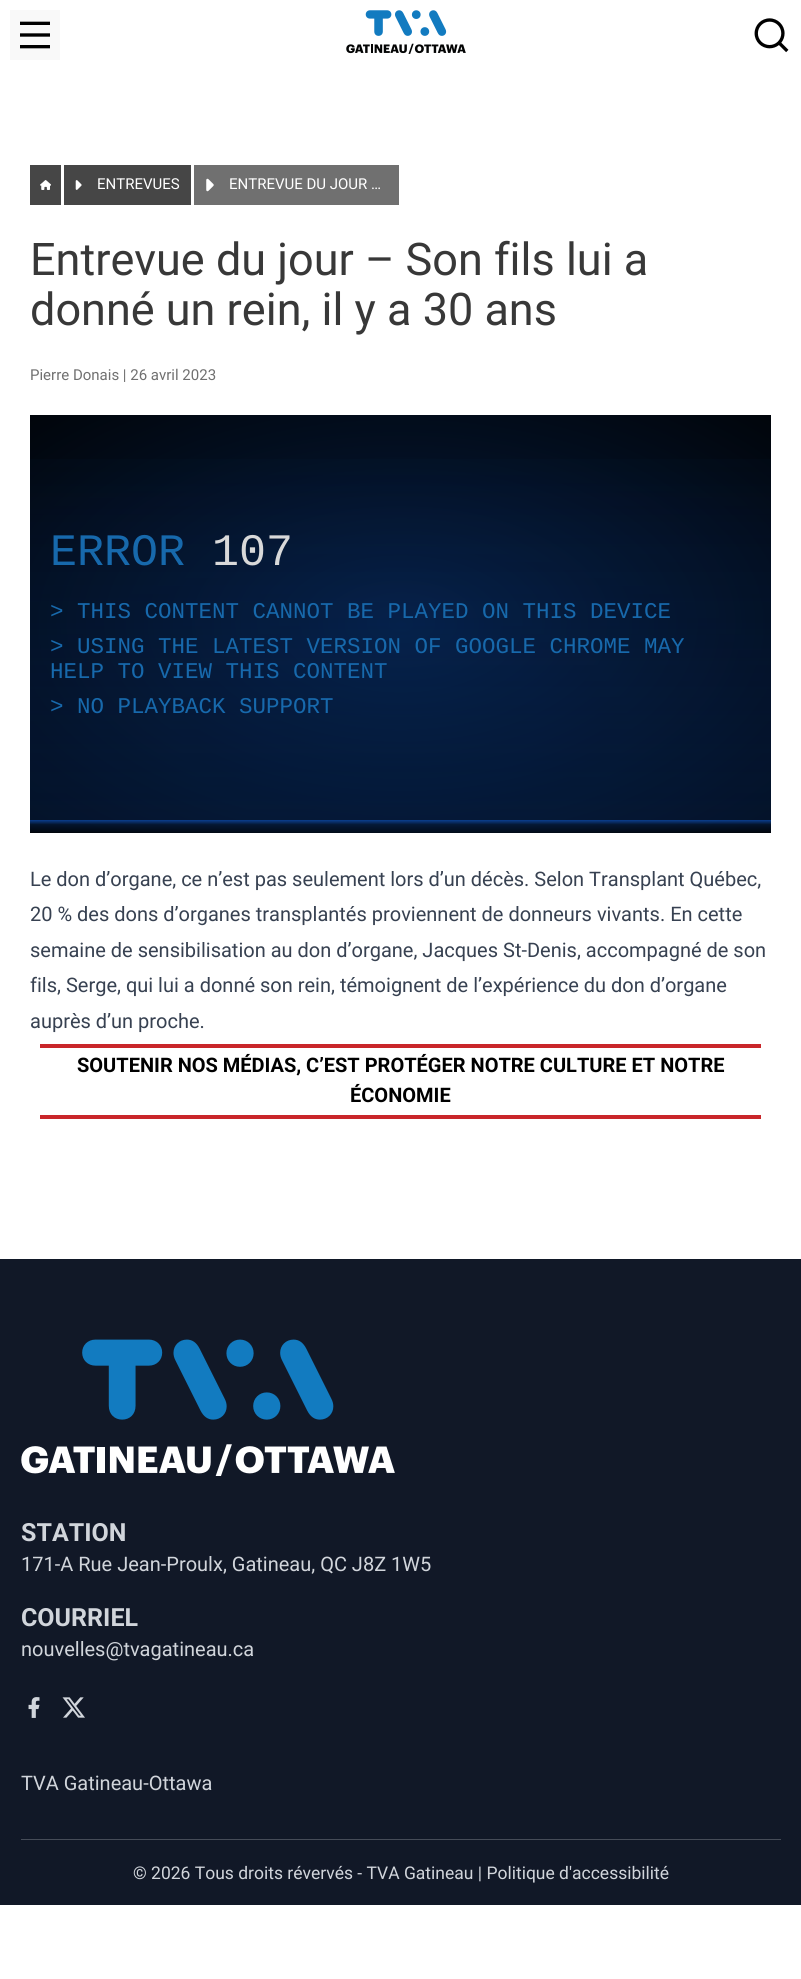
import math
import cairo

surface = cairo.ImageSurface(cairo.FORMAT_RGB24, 801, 1979)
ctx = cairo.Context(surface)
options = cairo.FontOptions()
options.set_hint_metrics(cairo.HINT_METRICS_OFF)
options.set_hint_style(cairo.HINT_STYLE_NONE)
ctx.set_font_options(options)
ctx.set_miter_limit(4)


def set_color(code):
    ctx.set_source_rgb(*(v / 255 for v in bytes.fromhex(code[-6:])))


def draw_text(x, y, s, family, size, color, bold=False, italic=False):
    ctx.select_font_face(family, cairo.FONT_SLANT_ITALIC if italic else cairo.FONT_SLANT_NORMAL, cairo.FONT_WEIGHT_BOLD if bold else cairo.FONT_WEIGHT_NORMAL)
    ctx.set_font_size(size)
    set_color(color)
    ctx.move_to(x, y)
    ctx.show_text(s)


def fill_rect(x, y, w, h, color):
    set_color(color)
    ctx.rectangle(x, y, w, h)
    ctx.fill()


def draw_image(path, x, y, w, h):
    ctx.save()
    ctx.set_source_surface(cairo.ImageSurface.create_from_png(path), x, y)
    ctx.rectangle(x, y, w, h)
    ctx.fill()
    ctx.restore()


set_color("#ffffff")
ctx.paint()
fill_rect(10, 10, 50, 50, "#f9f9f9")
draw_image("assets/img1.png", 20, 21, 30, 28)
draw_image("assets/img2.png", 346, 10, 120, 44)
draw_image("assets/img3.png", 754, 18, 35, 35)
fill_rect(30, 165, 31, 40, "#464646")
draw_image("assets/img4.png", 40, 180, 11, 10)
fill_rect(64, 165, 127, 40, "#464646")
draw_image("assets/img5.png", 75, 180, 7, 10)
draw_text(97, 189, "ENTREVUES", "Roboto", 15, "#ffffff")
fill_rect(194, 165, 205, 40, "#707070")
draw_image("assets/img6.png", 206, 178, 8, 14)
draw_text(229, 189, "ENTREVUE DU JOUR …", "Roboto", 15, "#ffffff")
draw_text(30, 275, "Entrevue du jour – Son fils lui a", "Roboto", 45, "#383838")
draw_text(30, 325, "donné un rein, il y a 30 ans", "Roboto", 45, "#383838")
draw_text(30, 380, "Pierre Donais | 26 avril 2023", "Roboto", 15, "#707070")
gradient = cairo.RadialGradient(0, 0, 0, 0, 0, 1)
gradient.set_matrix(cairo.Matrix(1 / 524, 0, 0, 1 / 295, -1 * 401 / 524, -1 * 624 / 295))
gradient.add_color_stop_rgba(0, 0.02, 0.114, 0.255, 1)
gradient.add_color_stop_rgba(1, 0.004, 0.02, 0.043, 1)
ctx.set_source(gradient)
ctx.rectangle(30, 415, 741, 418)
ctx.fill()
gradient = cairo.LinearGradient(401, 833, 401, 415)
gradient.add_color_stop_rgba(0, 0.051, 0.278, 0.631, 0)
gradient.add_color_stop_rgba(0.02, 0.051, 0.278, 0.631, 0.2)
gradient.add_color_stop_rgba(0.03, 0.051, 0.278, 0.631, 0.8)
gradient.add_color_stop_rgba(0.03, 0.051, 0.278, 0.631, 0.2)
gradient.add_color_stop_rgba(1, 0.051, 0.278, 0.631, 0)
ctx.set_source(gradient)
ctx.rectangle(30, 459, 741, 373)
ctx.fill()
draw_text(50, 565, "ERROR", "Liberation Mono", 45, "#1769ac")
draw_text(212, 565, "107", "Liberation Mono", 45, "#d9d9d9")
draw_text(50, 618, ">", "Liberation Mono", 22.5, "#1769ac")
draw_text(77, 618, "THIS CONTENT CANNOT BE PLAYED ON THIS DEVICE", "Liberation Mono", 22.5, "#1769ac")
draw_text(50, 653, ">", "Liberation Mono", 22.5, "#1769ac")
draw_text(77, 653, "USING THE LATEST VERSION OF GOOGLE CHROME MAY", "Liberation Mono", 22.5, "#1769ac")
draw_text(50, 678, "HELP TO VIEW THIS CONTENT", "Liberation Mono", 22.5, "#1769ac")
draw_text(50, 713, ">", "Liberation Mono", 22.5, "#1769ac")
draw_text(77, 713, "NO PLAYBACK SUPPORT", "Liberation Mono", 22.5, "#1769ac")
draw_text(30, 886, "Le don d’organe, ce n’est pas seulement lors d’un décès. Selon Transplant Québec,", "Roboto", 20, "#374151")
draw_text(30, 921, "20 % des dons d’organes transplantés proviennent de donneurs vivants. En cette", "Roboto", 20, "#374151")
draw_text(30, 957, "semaine de sensibilisation au don d’organe, Jacques St-Denis, accompagné de son", "Roboto", 20, "#374151")
draw_text(30, 992, "fils, Serge, qui lui a donné son rein, témoignent de l’expérience du don d’organe", "Roboto", 20, "#374151")
draw_text(30, 1028, "auprès d’un proche.", "Roboto", 20, "#374151")
fill_rect(40, 1044, 721, 4, "#c9262a")
fill_rect(40, 1115, 721, 4, "#c9262a")
draw_text(77, 1072, "SOUTENIR NOS MÉDIAS, C’EST PROTÉGER NOTRE CULTURE ET NOTRE", "Roboto", 20, "#000000", bold=True)
draw_text(350, 1102, "ÉCONOMIE", "Roboto", 20, "#000000", bold=True)
fill_rect(0, 1259, 801, 646, "#111827")
draw_image("assets/img7.png", 21, 1339, 374, 137)
draw_text(21, 1541, "STATION", "Roboto", 25, "#d1d5db", bold=True)
draw_text(21, 1571, "171-A Rue Jean-Proulx, Gatineau, QC J8Z 1W5", "Roboto", 20, "#d1d5db")
draw_text(21, 1626, "COURRIEL", "Roboto", 25, "#d1d5db", bold=True)
draw_text(21, 1656, "nouvelles@tvagatineau.ca", "Roboto", 20, "#d1d5db")
draw_image("assets/img8.png", 28, 1697, 12, 21)
draw_image("assets/img9.png", 62, 1697, 23, 21)
draw_text(21, 1790, "TVA Gatineau-Ottawa", "Roboto", 20, "#d1d5db")
fill_rect(21, 1839, 760, 1, "#464c58")
draw_text(133, 1879, "© 2026 Tous droits révervés - TVA Gatineau | Politique d'accessibilité", "Roboto", 17.5, "#d1d5db")
surface.write_to_png("output.png")
